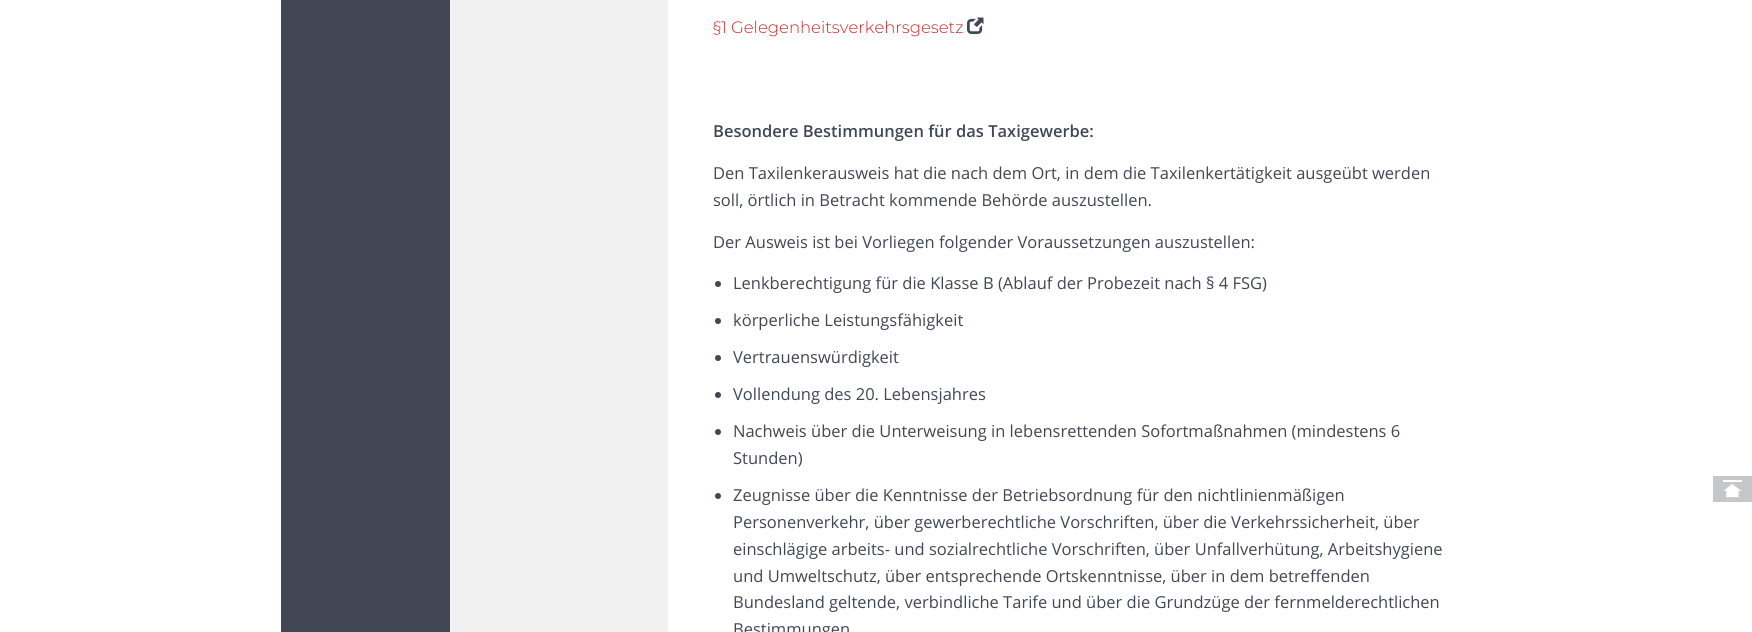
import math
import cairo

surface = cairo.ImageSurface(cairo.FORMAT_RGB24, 1752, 632)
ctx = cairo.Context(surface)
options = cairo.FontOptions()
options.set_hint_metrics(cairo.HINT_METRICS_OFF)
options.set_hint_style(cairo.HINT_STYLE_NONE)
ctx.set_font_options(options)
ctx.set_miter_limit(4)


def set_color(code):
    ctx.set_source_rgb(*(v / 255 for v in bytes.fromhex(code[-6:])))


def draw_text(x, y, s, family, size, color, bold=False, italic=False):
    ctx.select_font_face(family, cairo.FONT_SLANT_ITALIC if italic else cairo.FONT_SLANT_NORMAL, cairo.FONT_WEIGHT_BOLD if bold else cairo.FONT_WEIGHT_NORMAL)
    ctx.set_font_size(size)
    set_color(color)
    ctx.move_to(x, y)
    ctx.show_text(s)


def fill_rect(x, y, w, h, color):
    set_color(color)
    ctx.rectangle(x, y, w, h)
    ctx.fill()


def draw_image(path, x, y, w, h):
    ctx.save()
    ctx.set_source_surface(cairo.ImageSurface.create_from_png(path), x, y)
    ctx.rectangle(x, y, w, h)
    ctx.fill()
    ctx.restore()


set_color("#ffffff")
ctx.paint()
fill_rect(281, 0, 169, 632, "#414754")
fill_rect(450, 0, 218, 632, "#f1f1f1")
draw_text(713, 33, "§1 Gelegenheitsverkehrsgesetz", "Montserrat Light", 16.5, "#d62323")
draw_image("assets/img1.png", 967, 17, 17, 17)
draw_text(713, 137, "Besondere Bestimmungen für das Taxigewerbe:", "Open Sans SemiBold", 16.5, "#414754")
draw_text(713, 179, "Den Taxilenkerausweis hat die nach dem Ort, in dem die Taxilenkertätigkeit ausgeübt werden", "Open Sans", 16.5, "#414754")
draw_text(713, 206, "soll, örtlich in Betracht kommende Behörde auszustellen.", "Open Sans", 16.5, "#414754")
draw_text(713, 248, "Der Ausweis ist bei Vorliegen folgender Voraussetzungen auszustellen:", "Open Sans", 16.5, "#414754")
ctx.new_path()
ctx.arc(718, 284, 3, 0, 2 * math.pi)
ctx.fill()
draw_text(733, 289, "Lenkberechtigung für die Klasse B (Ablauf der Probezeit nach § 4 FSG)", "Open Sans", 16.5, "#414754")
ctx.new_path()
ctx.arc(718, 321, 3, 0, 2 * math.pi)
ctx.fill()
draw_text(733, 326, "körperliche Leistungsfähigkeit", "Open Sans", 16.5, "#414754")
ctx.new_path()
ctx.arc(718, 358, 3, 0, 2 * math.pi)
ctx.fill()
draw_text(733, 363, "Vertrauenswürdigkeit", "Open Sans", 16.5, "#414754")
ctx.new_path()
ctx.arc(718, 395, 3, 0, 2 * math.pi)
ctx.fill()
draw_text(733, 400, "Vollendung des 20. Lebensjahres", "Open Sans", 16.5, "#414754")
ctx.new_path()
ctx.arc(718, 432, 3, 0, 2 * math.pi)
ctx.fill()
draw_text(733, 437, "Nachweis über die Unterweisung in lebensrettenden Sofortmaßnahmen (mindestens 6", "Open Sans", 16.5, "#414754")
draw_text(733, 464, "Stunden)", "Open Sans", 16.5, "#414754")
ctx.new_path()
ctx.arc(718, 496, 3, 0, 2 * math.pi)
ctx.fill()
draw_text(733, 501, "Zeugnisse über die Kenntnisse der Betriebsordnung für den nichtlinienmäßigen", "Open Sans", 16.5, "#414754")
draw_text(733, 528, "Personenverkehr, über gewerberechtliche Vorschriften, über die Verkehrssicherheit, über", "Open Sans", 16.5, "#414754")
draw_text(733, 555, "einschlägige arbeits- und sozialrechtliche Vorschriften, über Unfallverhütung, Arbeitshygiene", "Open Sans", 16.5, "#414754")
draw_text(733, 582, "und Umweltschutz, über entsprechende Ortskenntnisse, über in dem betreffenden", "Open Sans", 16.5, "#414754")
draw_text(733, 608, "Bundesland geltende, verbindliche Tarife und über die Grundzüge der fernmelderechtlichen", "Open Sans", 16.5, "#414754")
draw_text(733, 635, "Bestimmungen", "Open Sans", 16.5, "#414754")
draw_image("assets/img2.png", 1713, 476, 39, 26)
surface.write_to_png("output.png")
